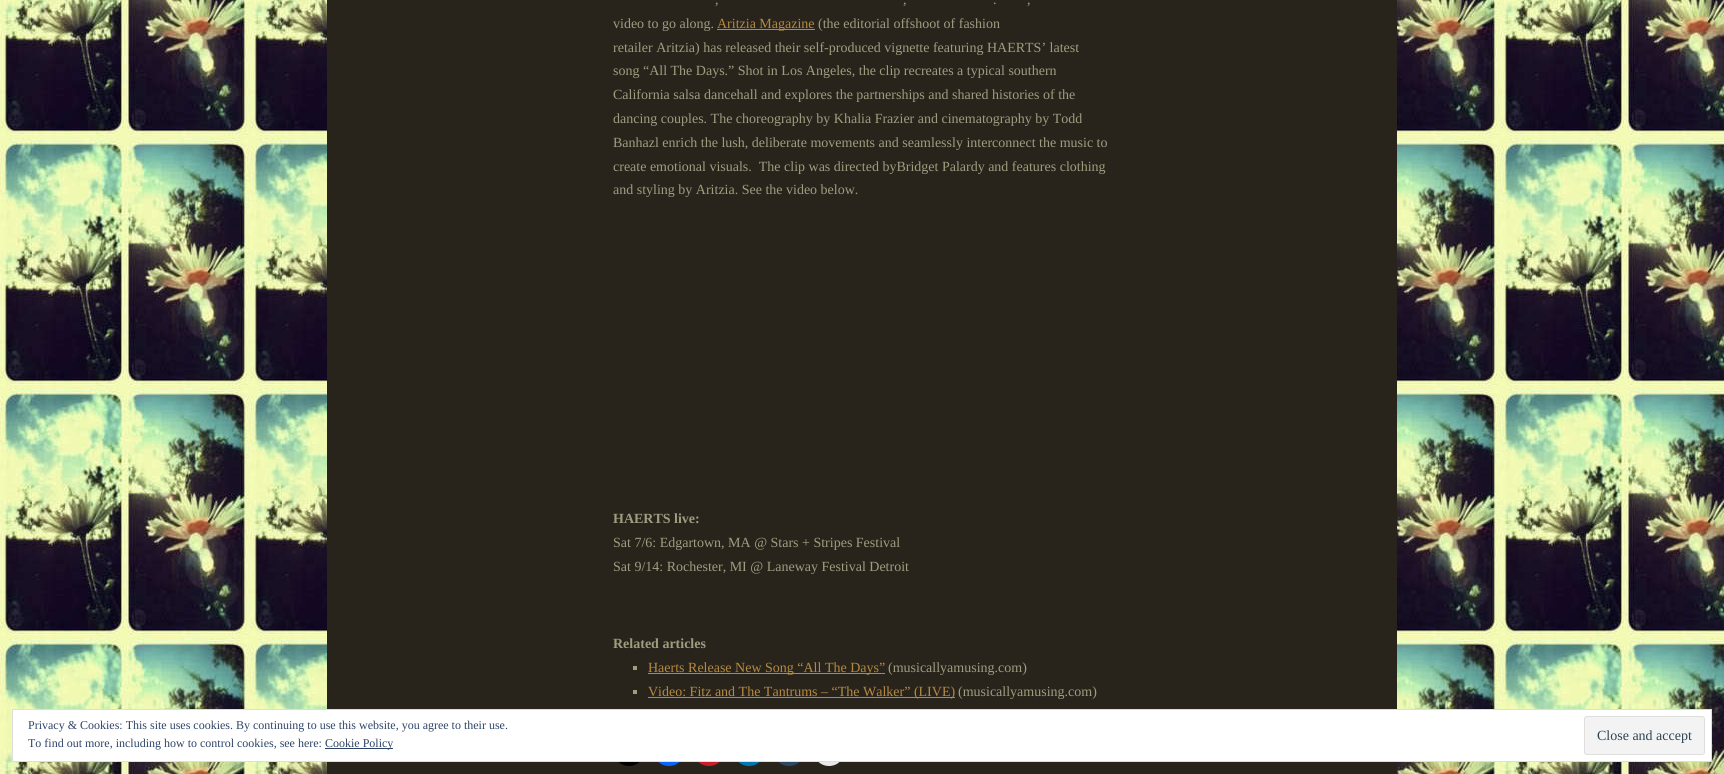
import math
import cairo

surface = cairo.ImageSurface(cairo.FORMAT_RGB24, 1724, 774)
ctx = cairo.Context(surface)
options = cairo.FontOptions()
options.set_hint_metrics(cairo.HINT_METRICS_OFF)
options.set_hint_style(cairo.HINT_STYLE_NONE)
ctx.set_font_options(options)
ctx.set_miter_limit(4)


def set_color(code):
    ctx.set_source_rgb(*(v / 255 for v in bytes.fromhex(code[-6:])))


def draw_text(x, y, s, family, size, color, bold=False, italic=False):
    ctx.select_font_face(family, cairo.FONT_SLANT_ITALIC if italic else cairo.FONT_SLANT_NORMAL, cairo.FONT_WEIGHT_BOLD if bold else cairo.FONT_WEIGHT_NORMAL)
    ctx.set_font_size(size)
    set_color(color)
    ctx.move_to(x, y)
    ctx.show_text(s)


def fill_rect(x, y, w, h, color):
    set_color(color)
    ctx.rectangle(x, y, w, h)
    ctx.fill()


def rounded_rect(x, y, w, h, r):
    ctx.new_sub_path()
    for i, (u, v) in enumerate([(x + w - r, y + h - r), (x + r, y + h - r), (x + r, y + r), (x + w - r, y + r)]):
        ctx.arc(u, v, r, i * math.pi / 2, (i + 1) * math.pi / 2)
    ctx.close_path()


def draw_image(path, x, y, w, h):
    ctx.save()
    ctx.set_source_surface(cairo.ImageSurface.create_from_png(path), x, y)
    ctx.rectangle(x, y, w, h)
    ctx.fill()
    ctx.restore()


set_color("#ffffff")
ctx.paint()
draw_image("assets/img1.png", 0, 0, 1724, 774)
fill_rect(327, 0, 1070, 774, "#29241b")
draw_text(715, 4, ",", "Liberation Serif", 14, "#9f9c80")
draw_text(903, 4, ",", "Liberation Serif", 14, "#9f9c80")
draw_text(993, 4, ".", "Liberation Serif", 14, "#9f9c80")
draw_text(1027, 4, ",", "Liberation Serif", 14, "#9f9c80")
draw_text(613, 28, "video to go along.", "Liberation Serif", 14, "#9f9c80")
fill_rect(717, 29, 98, 1, "#b58942")
draw_text(717, 28, "Aritzia Magazine", "Liberation Serif", 14, "#b58942")
draw_text(818, 28, "(the editorial offshoot of fashion", "Liberation Serif", 14, "#9f9c80")
draw_text(613, 52, "retailer Aritzia) has released their self-produced vignette featuring HAERTS’ latest", "Liberation Serif", 14, "#9f9c80")
draw_text(613, 75, "song “All The Days.” Shot in Los Angeles, the clip recreates a typical southern", "Liberation Serif", 14, "#9f9c80")
draw_text(613, 99, "California salsa dancehall and explores the partnerships and shared histories of the", "Liberation Serif", 14, "#9f9c80")
draw_text(613, 123, "dancing couples. The choreography by Khalia Frazier and cinematography by Todd", "Liberation Serif", 14, "#9f9c80")
draw_text(613, 147, "Banhazl enrich the lush, deliberate movements and seamlessly interconnect the music to", "Liberation Serif", 14, "#9f9c80")
draw_text(613, 171, "create emotional visuals.  The clip was directed byBridget Palardy and features clothing", "Liberation Serif", 14, "#9f9c80")
draw_text(613, 194, "and styling by Aritzia. See the video below.", "Liberation Serif", 14, "#9f9c80")
draw_text(613, 523, "HAERTS live:", "Liberation Serif", 14, "#9f9c80", bold=True)
draw_text(613, 547, "Sat 7/6: Edgartown, MA @ Stars + Stripes Festival", "Liberation Serif", 14, "#9f9c80")
draw_text(613, 571, "Sat 9/14: Rochester, MI @ Laneway Festival Detroit", "Liberation Serif", 14, "#9f9c80")
draw_text(613, 648, "Related articles", "Liberation Serif", 14, "#9f9c80", bold=True)
fill_rect(633, 666, 4, 4, "#9f9c80")
fill_rect(648, 673, 237, 1, "#b58942")
draw_text(648, 672, "Haerts Release New Song “All The Days”", "Liberation Serif", 14, "#b58942")
draw_text(888, 672, "(musicallyamusing.com)", "Liberation Serif", 14, "#9f9c80")
fill_rect(633, 690, 4, 4, "#9f9c80")
fill_rect(648, 697, 307, 1, "#b58942")
draw_text(648, 696, "Video: Fitz and The Tantrums – “The Walker” (LIVE)", "Liberation Serif", 14, "#b58942")
draw_text(958, 696, "(musicallyamusing.com)", "Liberation Serif", 14, "#9f9c80")
set_color("#000000")
ctx.new_path()
ctx.arc(629, 750, 16, 0, 2 * math.pi)
ctx.fill()
set_color("#0866ff")
ctx.arc(669, 750, 16, 0, 2 * math.pi)
ctx.fill()
set_color("#ca1f27")
ctx.arc(709, 750, 16, 0, 2 * math.pi)
ctx.fill()
set_color("#0077b5")
ctx.arc(749, 750, 16, 0, 2 * math.pi)
ctx.fill()
set_color("#2c4762")
ctx.arc(789, 750, 16, 0, 2 * math.pi)
ctx.fill()
set_color("#e9e9e9")
ctx.arc(829, 750, 16, 0, 2 * math.pi)
ctx.fill()
set_color("#ffffff")
ctx.rectangle(12.5, 709.5, 1699, 52)
ctx.fill_preserve()
set_color("#dedede")
ctx.set_line_width(1)
ctx.stroke()
draw_text(28, 729, "Privacy & Cookies: This site uses cookies. By continuing to use this website, you agree to their use.", "Liberation Serif", 12, "#2e4467")
draw_text(28, 747, "To find out more, including how to control cookies, see here:", "Liberation Serif", 12, "#2e4467")
fill_rect(325, 748, 68, 1, "#2e4467")
draw_text(325, 747, "Cookie Policy", "Liberation Serif", 12, "#2e4467")
set_color("#f3f3f3")
rounded_rect(1584.5, 716.5, 120, 38, 2.5)
ctx.fill_preserve()
set_color("#dedede")
ctx.stroke()
draw_text(1597, 740, "Close and accept", "Liberation Serif", 14, "#2e4453")
surface.write_to_png("output.png")
